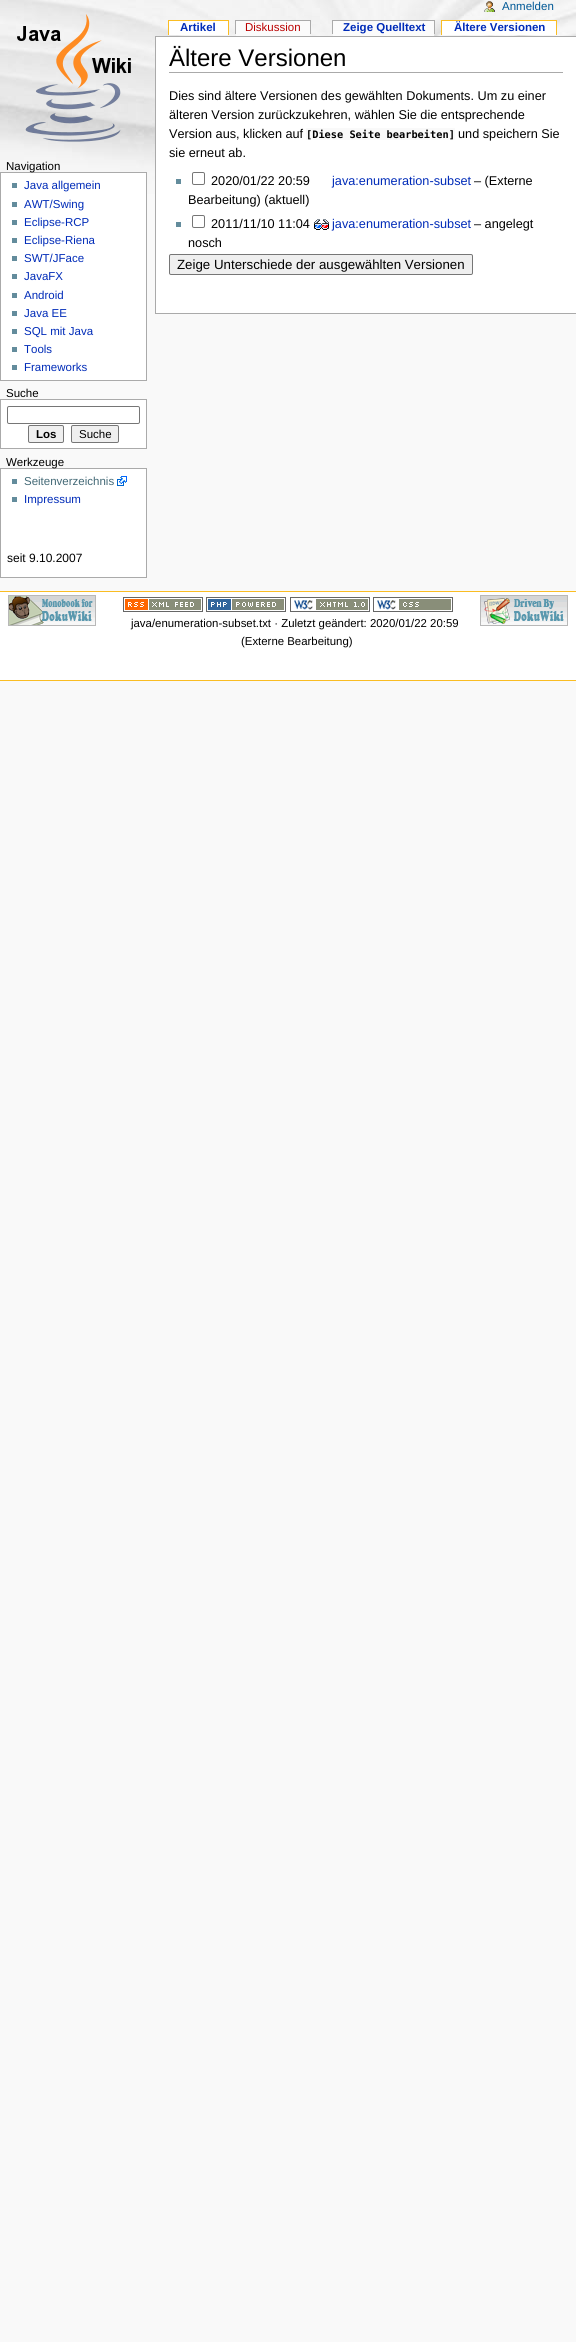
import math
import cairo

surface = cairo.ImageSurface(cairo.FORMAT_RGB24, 576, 2342)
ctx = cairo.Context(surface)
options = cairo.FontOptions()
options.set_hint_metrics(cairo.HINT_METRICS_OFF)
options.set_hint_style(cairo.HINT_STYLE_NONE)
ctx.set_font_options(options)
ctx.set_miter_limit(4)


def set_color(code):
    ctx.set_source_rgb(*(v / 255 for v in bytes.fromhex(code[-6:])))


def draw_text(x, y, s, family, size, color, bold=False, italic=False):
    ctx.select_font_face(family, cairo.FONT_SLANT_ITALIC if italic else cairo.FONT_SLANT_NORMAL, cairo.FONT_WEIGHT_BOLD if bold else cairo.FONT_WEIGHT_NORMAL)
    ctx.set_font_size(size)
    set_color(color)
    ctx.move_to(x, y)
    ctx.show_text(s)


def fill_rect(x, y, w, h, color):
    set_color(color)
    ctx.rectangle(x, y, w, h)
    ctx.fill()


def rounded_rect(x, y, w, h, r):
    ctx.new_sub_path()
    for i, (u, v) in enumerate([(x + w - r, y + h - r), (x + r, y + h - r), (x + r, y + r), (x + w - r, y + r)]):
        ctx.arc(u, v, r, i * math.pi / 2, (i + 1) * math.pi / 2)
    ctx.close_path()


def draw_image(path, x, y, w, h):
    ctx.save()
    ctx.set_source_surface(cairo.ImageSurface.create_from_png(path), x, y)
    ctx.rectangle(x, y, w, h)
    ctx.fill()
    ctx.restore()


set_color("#f9f9f9")
ctx.paint()
draw_image("assets/img1.png", 0, 0, 576, 194)
draw_image("assets/img2.png", 484, 1, 11, 11)
draw_text(502, 10, "Anmelden", "Liberation Sans", 11.5, "#005896")
draw_image("assets/img3.png", 17, 14, 114, 128)
fill_rect(169, 21, 59, 14, "#ffffff")
draw_text(180, 31, "Artikel", "Liberation Sans", 11.5, "#002bb8", bold=True)
fill_rect(168, 20, 61, 1, "#fabd23")
fill_rect(228, 20, 1, 15, "#fabd23")
fill_rect(168, 20, 1, 15, "#fabd23")
fill_rect(236, 21, 74, 15, "#fbfbfb")
draw_text(245, 31, "Diskussion", "Liberation Sans", 11.5, "#ba0000")
fill_rect(235, 20, 76, 1, "#aaaaaa")
fill_rect(310, 20, 1, 14, "#aaaaaa")
fill_rect(235, 20, 1, 14, "#aaaaaa")
fill_rect(333, 21, 101, 15, "#fbfbfb")
draw_text(343, 31, "Zeige Quelltext", "Liberation Sans", 11.5, "#002bb8", bold=True)
fill_rect(332, 20, 103, 1, "#aaaaaa")
fill_rect(434, 20, 1, 14, "#aaaaaa")
fill_rect(332, 20, 1, 14, "#aaaaaa")
fill_rect(442, 21, 114, 14, "#ffffff")
draw_text(454, 31, "Ältere Versionen", "Liberation Sans", 11.5, "#002bb8", bold=True)
fill_rect(441, 20, 116, 1, "#fabd23")
fill_rect(556, 20, 1, 15, "#fabd23")
fill_rect(441, 20, 1, 15, "#fabd23")
set_color("#ffffff")
ctx.rectangle(0.5, 172.5, 146, 208)
ctx.fill_preserve()
set_color("#aaaaaa")
ctx.set_line_width(1)
ctx.stroke()
draw_text(6, 170, "Navigation", "Liberation Sans", 11.5, "#000000")
fill_rect(12, 183, 5, 5, "#638c9c")
draw_text(24, 189, "Java allgemein", "Liberation Sans", 11.5, "#002bb8")
fill_rect(12, 202, 5, 5, "#638c9c")
draw_text(24, 208, "AWT/Swing", "Liberation Sans", 11.5, "#002bb8")
fill_rect(12, 220, 5, 5, "#638c9c")
draw_text(24, 226, "Eclipse-RCP", "Liberation Sans", 11.5, "#002bb8")
fill_rect(12, 238, 5, 5, "#638c9c")
draw_text(24, 244, "Eclipse-Riena", "Liberation Sans", 11.5, "#002bb8")
fill_rect(12, 256, 5, 5, "#638c9c")
draw_text(24, 262, "SWT/JFace", "Liberation Sans", 11.5, "#002bb8")
fill_rect(12, 274, 5, 5, "#638c9c")
draw_text(24, 280, "JavaFX", "Liberation Sans", 11.5, "#002bb8")
fill_rect(12, 293, 5, 5, "#638c9c")
draw_text(24, 299, "Android", "Liberation Sans", 11.5, "#002bb8")
fill_rect(12, 311, 5, 5, "#638c9c")
draw_text(24, 317, "Java EE", "Liberation Sans", 11.5, "#002bb8")
fill_rect(12, 329, 5, 5, "#638c9c")
draw_text(24, 335, "SQL mit Java", "Liberation Sans", 11.5, "#002bb8")
fill_rect(12, 347, 5, 5, "#638c9c")
draw_text(24, 353, "Tools", "Liberation Sans", 11.5, "#002bb8")
fill_rect(12, 365, 5, 5, "#638c9c")
draw_text(24, 371, "Frameworks", "Liberation Sans", 11.5, "#002bb8")
draw_text(6, 397, "Suche", "Liberation Sans", 11.5, "#000000")
set_color("#ffffff")
ctx.rectangle(0.5, 399.5, 146, 49)
ctx.fill_preserve()
set_color("#aaaaaa")
ctx.stroke()
rounded_rect(7.5, 406.5, 132, 17, 1.5)
set_color("#767676")
ctx.stroke()
set_color("#efefef")
rounded_rect(28.5, 425.5, 35, 17, 1.5)
ctx.fill_preserve()
set_color("#767676")
ctx.stroke()
draw_text(36, 438, "Los", "Liberation Sans", 11.5, "#000000", bold=True)
set_color("#efefef")
rounded_rect(71.5, 425.5, 47, 17, 1.5)
ctx.fill_preserve()
set_color("#767676")
ctx.stroke()
draw_text(79, 438, "Suche", "Liberation Sans", 11.5, "#000000")
set_color("#ffffff")
ctx.rectangle(0.5, 468.5, 146, 109)
ctx.fill_preserve()
set_color("#aaaaaa")
ctx.stroke()
draw_text(6, 466, "Werkzeuge", "Liberation Sans", 11.5, "#000000")
fill_rect(12, 479, 5, 5, "#638c9c")
draw_text(24, 485, "Seitenverzeichnis", "Liberation Sans", 11.5, "#436976")
draw_image("assets/img4.png", 117, 476, 10, 10)
fill_rect(12, 497, 5, 5, "#638c9c")
draw_text(24, 503, "Impressum", "Liberation Sans", 11.5, "#002bb8")
draw_text(7, 562, "seit 9.10.2007", "Liberation Sans", 12, "#000000")
fill_rect(156, 37, 420, 276, "#ffffff")
fill_rect(155, 36, 421, 1, "#aaaaaa")
fill_rect(155, 313, 421, 1, "#aaaaaa")
fill_rect(155, 36, 1, 278, "#aaaaaa")
fill_rect(169, 72, 394, 1, "#aaaaaa")
draw_text(169, 66, "Ältere Versionen", "Liberation Sans", 24, "#000000")
draw_text(169, 100, "Dies sind ältere Versionen des gewählten Dokuments. Um zu einer", "Liberation Sans", 12.7, "#000000")
draw_text(169, 119, "älteren Version zurückzukehren, wählen Sie die entsprechende", "Liberation Sans", 12.7, "#000000")
draw_text(169, 138, "Version aus, klicken auf", "Liberation Sans", 12.7, "#000000")
fill_rect(306, 128, 149, 12, "#f9f9f9")
draw_text(306, 138, "[Diese Seite bearbeiten]", "DejaVu Sans Mono", 10.3, "#000000", bold=True)
draw_text(458, 138, "und speichern Sie", "Liberation Sans", 12.7, "#000000")
draw_text(169, 157, "sie erneut ab.", "Liberation Sans", 12.7, "#000000")
fill_rect(176, 179, 5, 5, "#638c9c")
rounded_rect(192.5, 172.5, 12, 12, 1.5)
set_color("#767676")
ctx.stroke()
draw_text(211, 185, "2020/01/22 20:59", "Liberation Sans", 12.7, "#000000")
draw_text(332, 185, "java:enumeration-subset", "Liberation Sans", 12.7, "#002bb8")
draw_text(474, 185, "– (Externe", "Liberation Sans", 12.7, "#000000")
draw_text(188, 204, "Bearbeitung) (aktuell)", "Liberation Sans", 12.7, "#000000")
fill_rect(176, 222, 5, 5, "#638c9c")
rounded_rect(192.5, 215.5, 12, 12, 1.5)
set_color("#767676")
ctx.stroke()
draw_text(211, 228, "2011/11/10 11:04", "Liberation Sans", 12.7, "#000000")
draw_image("assets/img5.png", 314, 219, 15, 11)
draw_text(332, 228, "java:enumeration-subset", "Liberation Sans", 12.7, "#002bb8")
draw_text(474, 228, "– angelegt", "Liberation Sans", 12.7, "#000000")
draw_text(188, 247, "nosch", "Liberation Sans", 12.7, "#000000")
set_color("#efefef")
rounded_rect(169.5, 254.5, 303, 20, 1.5)
ctx.fill_preserve()
set_color("#767676")
ctx.stroke()
draw_text(177, 269, "Zeige Unterschiede der ausgewählten Versionen", "Liberation Sans", 13.3, "#000000")
fill_rect(0, 592, 576, 88, "#ffffff")
fill_rect(0, 591, 576, 1, "#fabd23")
fill_rect(0, 680, 576, 1, "#fabd23")
draw_image("assets/img6.png", 8, 595, 88, 31)
draw_image("assets/img7.png", 123, 597, 80, 15)
draw_image("assets/img8.png", 206, 597, 80, 15)
draw_image("assets/img9.png", 290, 597, 80, 15)
draw_image("assets/img10.png", 373, 597, 80, 15)
draw_image("assets/img11.png", 480, 595, 88, 31)
draw_text(131, 627, "java/enumeration-subset.txt · Zuletzt geändert: 2020/01/22 20:59", "Liberation Sans", 11.4, "#000000")
draw_text(241, 645, "(Externe Bearbeitung)", "Liberation Sans", 11.4, "#000000")
surface.write_to_png("output.png")
